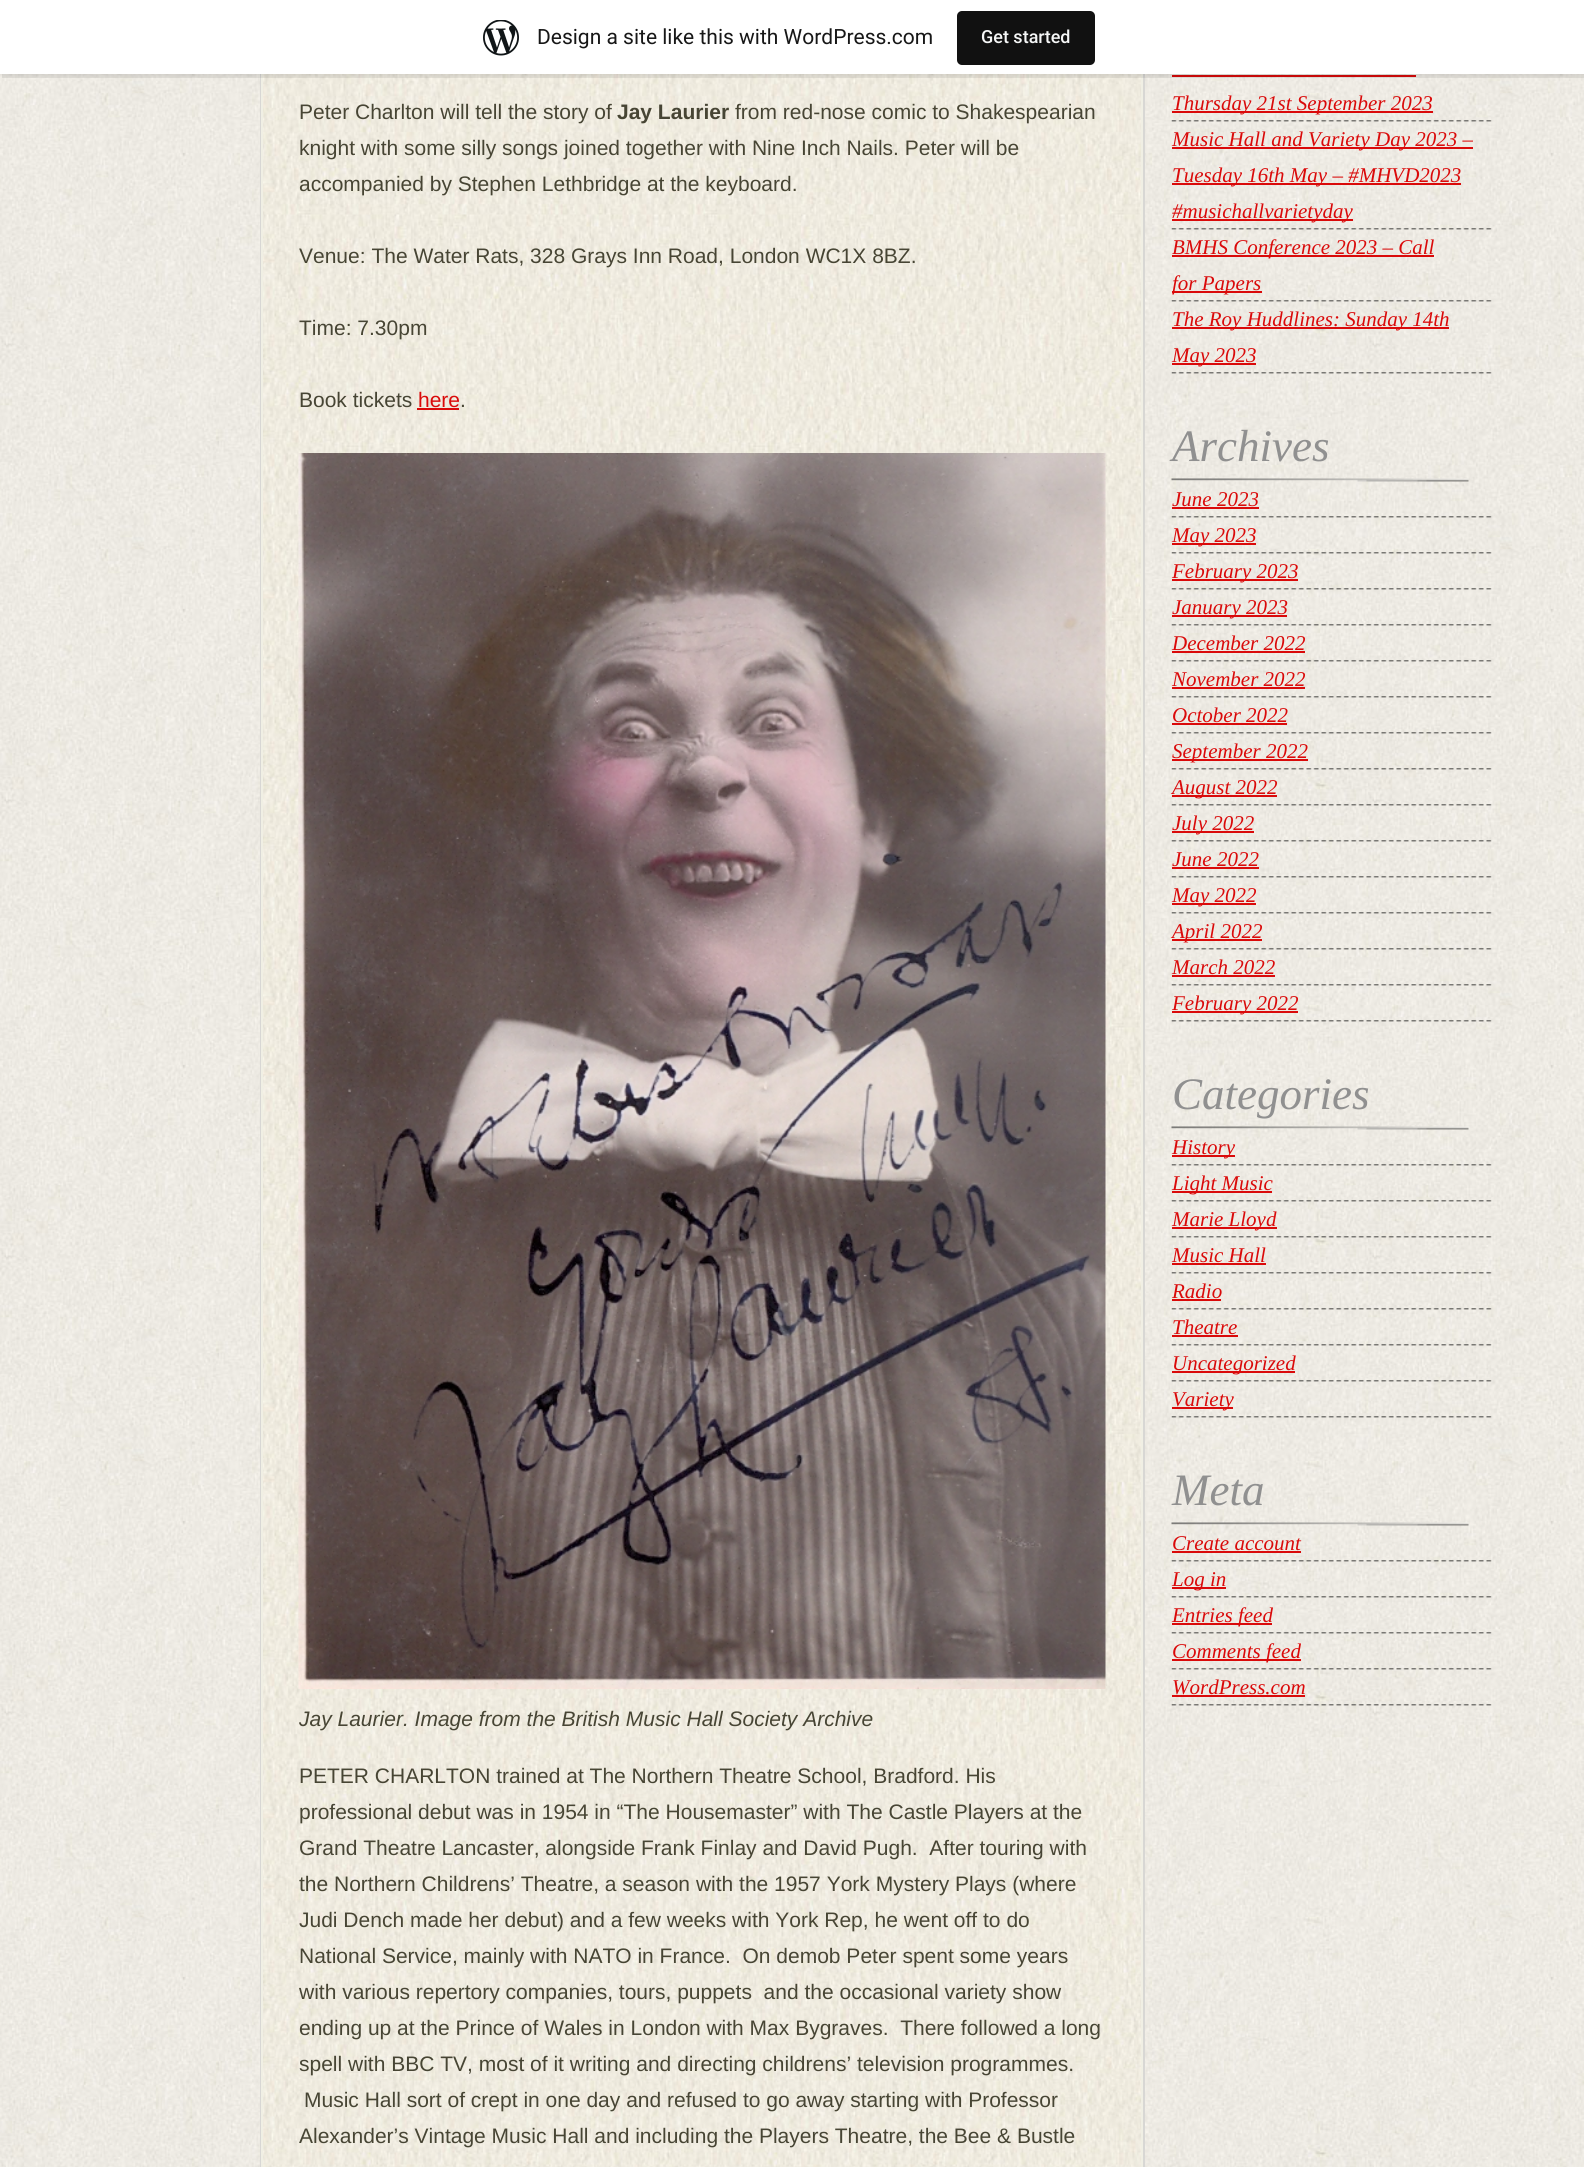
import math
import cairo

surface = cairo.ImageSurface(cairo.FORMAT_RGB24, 1584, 2167)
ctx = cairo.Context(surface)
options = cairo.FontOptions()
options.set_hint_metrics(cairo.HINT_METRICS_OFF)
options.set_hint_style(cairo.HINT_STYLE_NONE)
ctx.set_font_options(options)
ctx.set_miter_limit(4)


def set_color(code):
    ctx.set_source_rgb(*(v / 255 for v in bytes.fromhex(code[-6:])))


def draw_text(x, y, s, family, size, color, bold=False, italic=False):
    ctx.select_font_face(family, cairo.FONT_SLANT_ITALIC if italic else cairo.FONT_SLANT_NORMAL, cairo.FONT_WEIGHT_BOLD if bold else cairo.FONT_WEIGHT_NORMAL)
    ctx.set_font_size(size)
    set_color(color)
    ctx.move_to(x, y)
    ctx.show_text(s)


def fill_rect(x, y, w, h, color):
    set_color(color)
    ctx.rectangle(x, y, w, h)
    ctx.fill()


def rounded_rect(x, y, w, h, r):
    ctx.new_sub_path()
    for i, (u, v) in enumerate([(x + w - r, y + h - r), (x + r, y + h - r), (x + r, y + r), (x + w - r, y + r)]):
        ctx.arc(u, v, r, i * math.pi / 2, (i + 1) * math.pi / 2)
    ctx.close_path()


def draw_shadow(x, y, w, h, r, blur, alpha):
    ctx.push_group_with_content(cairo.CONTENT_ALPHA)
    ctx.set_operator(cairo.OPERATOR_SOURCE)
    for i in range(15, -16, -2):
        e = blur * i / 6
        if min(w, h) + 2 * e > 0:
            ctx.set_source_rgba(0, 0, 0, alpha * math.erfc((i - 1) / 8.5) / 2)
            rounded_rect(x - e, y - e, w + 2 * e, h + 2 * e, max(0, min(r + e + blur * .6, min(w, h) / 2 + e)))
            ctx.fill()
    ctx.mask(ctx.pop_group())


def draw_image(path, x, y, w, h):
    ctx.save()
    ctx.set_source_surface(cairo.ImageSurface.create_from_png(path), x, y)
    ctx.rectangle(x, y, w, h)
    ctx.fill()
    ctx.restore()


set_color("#ffffff")
ctx.paint()
draw_image("assets/img1.png", 0, 74, 1584, 2093)
ctx.rectangle(261, -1, 883, 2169)
set_color("#d8d7d4")
ctx.stroke()
draw_image("assets/img3.png", 263, 74, 878, 2093)
ctx.rectangle(262, -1, 880, 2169)
set_color("#f0efe4")
ctx.stroke()
fill_rect(1172, 75, 244, 2, "#da0a0a")
set_color("#000000")
draw_shadow(0, 2, 1584, 73, 0, 1.5, 0.05)
ctx.set_source_rgba(0, 0, 0, 0.08)
ctx.new_path()
ctx.move_to(2, 74)
ctx.line_to(2, 78)
ctx.line_to(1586, 78)
ctx.line_to(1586, 5)
ctx.line_to(1584, 5)
ctx.line_to(1584, 74)
ctx.close_path()
ctx.fill()
fill_rect(0, 0, 1584, 74, "#ffffff")
draw_image("assets/img2.png", 483, 20, 36, 36)
draw_text(537, 44, "Design a site like this with WordPress.com", "Roboto", 21, "#171717")
set_color("#111111")
rounded_rect(957, 11, 138, 54, 5)
ctx.fill()
draw_text(981, 43, "Get started", "Roboto Medium", 18, "#f6f7f7")
draw_text(299, 119, "Peter Charlton will tell the story of", "Liberation Sans", 21, "#474534")
draw_text(617, 119, "Jay Laurier", "Liberation Sans", 21, "#474534", bold=True)
draw_text(735, 119, "from red-nose comic to Shakespearian", "Liberation Sans", 21, "#474534")
draw_text(299, 155, "knight with some silly songs joined together with Nine Inch Nails. Peter will be", "Liberation Sans", 21, "#474534")
draw_text(299, 191, "accompanied by Stephen Lethbridge at the keyboard.", "Liberation Sans", 21, "#474534")
draw_text(299, 263, "Venue: The Water Rats, 328 Grays Inn Road, London WC1X 8BZ.", "Liberation Sans", 21, "#474534")
draw_text(299, 335, "Time: 7.30pm", "Liberation Sans", 21, "#474534")
draw_text(299, 407, "Book tickets", "Liberation Sans", 21, "#474534")
draw_text(418, 407, "here", "Liberation Sans", 21, "#da0a0a")
fill_rect(417, 408, 42, 2, "#da0a0a")
draw_text(460, 407, ".", "Liberation Sans", 21, "#474534")
draw_image("assets/img4.png", 298, 453, 808, 1236)
draw_text(299, 1726, "Jay Laurier. Image from the British Music Hall Society Archive", "Liberation Sans", 21, "#474534", italic=True)
draw_text(299, 1783, "PETER CHARLTON trained at The Northern Theatre School, Bradford. His", "Liberation Sans", 21, "#474534")
draw_text(299, 1819, "professional debut was in 1954 in “The Housemaster” with The Castle Players at the", "Liberation Sans", 21, "#474534")
draw_text(299, 1855, "Grand Theatre Lancaster, alongside Frank Finlay and David Pugh.  After touring with", "Liberation Sans", 21, "#474534")
draw_text(299, 1891, "the Northern Childrens’ Theatre, a season with the 1957 York Mystery Plays (where", "Liberation Sans", 21, "#474534")
draw_text(299, 1927, "Judi Dench made her debut) and a few weeks with York Rep, he went off to do", "Liberation Sans", 21, "#474534")
draw_text(299, 1963, "National Service, mainly with NATO in France.  On demob Peter spent some years", "Liberation Sans", 21, "#474534")
draw_text(299, 1999, "with various repertory companies, tours, puppets  and the occasional variety show", "Liberation Sans", 21, "#474534")
draw_text(299, 2035, "ending up at the Prince of Wales in London with Max Bygraves.  There followed a long", "Liberation Sans", 21, "#474534")
draw_text(299, 2071, "spell with BBC TV, most of it writing and directing childrens’ television programmes.", "Liberation Sans", 21, "#474534")
draw_text(304, 2107, "Music Hall sort of crept in one day and refused to go away starting with Professor", "Liberation Sans", 21, "#474534")
draw_text(299, 2143, "Alexander’s Vintage Music Hall and including the Players Theatre, the Bee & Bustle", "Liberation Sans", 21, "#474534")
draw_image("assets/img5.png", 1171, 120, 321, 2)
fill_rect(1172, 111, 261, 2, "#da0a0a")
draw_text(1172, 110, "Thursday 21st September 2023", "Liberation Serif", 21, "#da0a0a", italic=True)
draw_image("assets/img6.png", 1171, 228, 321, 2)
fill_rect(1172, 147, 301, 2, "#da0a0a")
draw_text(1172, 146, "Music Hall and Variety Day 2023 –", "Liberation Serif", 21, "#da0a0a", italic=True)
fill_rect(1172, 183, 289, 2, "#da0a0a")
draw_text(1172, 182, "Tuesday 16th May – #MHVD2023", "Liberation Serif", 21, "#da0a0a", italic=True)
fill_rect(1172, 219, 181, 2, "#da0a0a")
draw_text(1172, 218, "#musichallvarietyday", "Liberation Serif", 21, "#da0a0a", italic=True)
draw_image("assets/img7.png", 1171, 300, 321, 2)
fill_rect(1172, 255, 262, 2, "#da0a0a")
draw_text(1172, 254, "BMHS Conference 2023 – Call", "Liberation Serif", 21, "#da0a0a", italic=True)
fill_rect(1172, 291, 90, 2, "#da0a0a")
draw_text(1172, 290, "for Papers", "Liberation Serif", 21, "#da0a0a", italic=True)
draw_image("assets/img8.png", 1171, 372, 321, 2)
fill_rect(1172, 327, 277, 2, "#da0a0a")
draw_text(1172, 326, "The Roy Huddlines: Sunday 14th", "Liberation Serif", 21, "#da0a0a", italic=True)
fill_rect(1172, 363, 84, 2, "#da0a0a")
draw_text(1172, 362, "May 2023", "Liberation Serif", 21, "#da0a0a", italic=True)
draw_image("assets/img9.png", 1171, 478, 298, 4)
draw_text(1172, 461, "Archives", "Liberation Serif", 45, "#909090", italic=True)
draw_image("assets/img10.png", 1171, 516, 321, 2)
draw_text(1172, 506, "June 2023", "Liberation Serif", 21, "#da0a0a", italic=True)
fill_rect(1172, 507, 87, 2, "#da0a0a")
draw_image("assets/img11.png", 1171, 552, 321, 2)
fill_rect(1172, 543, 84, 2, "#da0a0a")
draw_text(1172, 542, "May 2023", "Liberation Serif", 21, "#da0a0a", italic=True)
draw_image("assets/img12.png", 1171, 588, 321, 2)
fill_rect(1172, 579, 126, 2, "#da0a0a")
draw_text(1172, 578, "February 2023", "Liberation Serif", 21, "#da0a0a", italic=True)
draw_image("assets/img13.png", 1171, 624, 321, 2)
fill_rect(1172, 615, 115, 2, "#da0a0a")
draw_text(1172, 614, "January 2023", "Liberation Serif", 21, "#da0a0a", italic=True)
draw_image("assets/img14.png", 1171, 660, 321, 2)
draw_text(1172, 650, "December 2022", "Liberation Serif", 21, "#da0a0a", italic=True)
fill_rect(1172, 651, 133, 2, "#da0a0a")
draw_image("assets/img15.png", 1171, 696, 321, 2)
draw_text(1172, 686, "November 2022", "Liberation Serif", 21, "#da0a0a", italic=True)
fill_rect(1172, 687, 133, 2, "#da0a0a")
draw_image("assets/img16.png", 1171, 732, 321, 2)
draw_text(1172, 722, "October 2022", "Liberation Serif", 21, "#da0a0a", italic=True)
fill_rect(1172, 723, 115, 2, "#da0a0a")
draw_image("assets/img17.png", 1171, 768, 321, 2)
fill_rect(1172, 759, 136, 2, "#da0a0a")
draw_text(1172, 758, "September 2022", "Liberation Serif", 21, "#da0a0a", italic=True)
draw_image("assets/img18.png", 1171, 804, 321, 2)
fill_rect(1172, 795, 105, 2, "#da0a0a")
draw_text(1172, 794, "August 2022", "Liberation Serif", 21, "#da0a0a", italic=True)
draw_image("assets/img19.png", 1171, 840, 321, 2)
fill_rect(1172, 831, 82, 2, "#da0a0a")
draw_text(1172, 830, "July 2022", "Liberation Serif", 21, "#da0a0a", italic=True)
draw_image("assets/img20.png", 1171, 876, 321, 2)
draw_text(1172, 866, "June 2022", "Liberation Serif", 21, "#da0a0a", italic=True)
fill_rect(1172, 867, 87, 2, "#da0a0a")
draw_image("assets/img21.png", 1171, 912, 321, 2)
fill_rect(1172, 903, 84, 2, "#da0a0a")
draw_text(1172, 902, "May 2022", "Liberation Serif", 21, "#da0a0a", italic=True)
draw_image("assets/img22.png", 1171, 948, 321, 2)
fill_rect(1172, 939, 90, 2, "#da0a0a")
draw_text(1172, 938, "April 2022", "Liberation Serif", 21, "#da0a0a", italic=True)
draw_image("assets/img23.png", 1171, 984, 321, 2)
draw_text(1172, 974, "March 2022", "Liberation Serif", 21, "#da0a0a", italic=True)
fill_rect(1172, 975, 103, 2, "#da0a0a")
draw_image("assets/img24.png", 1171, 1020, 321, 2)
fill_rect(1172, 1011, 126, 2, "#da0a0a")
draw_text(1172, 1010, "February 2022", "Liberation Serif", 21, "#da0a0a", italic=True)
draw_image("assets/img25.png", 1171, 1126, 298, 4)
draw_text(1172, 1109, "Categories", "Liberation Serif", 45, "#909090", italic=True)
draw_image("assets/img26.png", 1171, 1164, 321, 2)
fill_rect(1172, 1155, 63, 2, "#da0a0a")
draw_text(1172, 1154, "History", "Liberation Serif", 21, "#da0a0a", italic=True)
draw_image("assets/img27.png", 1171, 1200, 321, 2)
fill_rect(1172, 1191, 100, 2, "#da0a0a")
draw_text(1172, 1190, "Light Music", "Liberation Serif", 21, "#da0a0a", italic=True)
draw_image("assets/img28.png", 1171, 1236, 321, 2)
fill_rect(1172, 1227, 105, 2, "#da0a0a")
draw_text(1172, 1226, "Marie Lloyd", "Liberation Serif", 21, "#da0a0a", italic=True)
draw_image("assets/img29.png", 1171, 1272, 321, 2)
draw_text(1172, 1262, "Music Hall", "Liberation Serif", 21, "#da0a0a", italic=True)
fill_rect(1172, 1263, 94, 2, "#da0a0a")
draw_image("assets/img30.png", 1171, 1308, 321, 2)
draw_text(1172, 1298, "Radio", "Liberation Serif", 21, "#da0a0a", italic=True)
fill_rect(1172, 1299, 49, 2, "#da0a0a")
draw_image("assets/img31.png", 1171, 1344, 321, 2)
draw_text(1172, 1334, "Theatre", "Liberation Serif", 21, "#da0a0a", italic=True)
fill_rect(1172, 1335, 66, 2, "#da0a0a")
draw_image("assets/img32.png", 1171, 1380, 321, 2)
fill_rect(1172, 1371, 123, 2, "#da0a0a")
draw_text(1172, 1370, "Uncategorized", "Liberation Serif", 21, "#da0a0a", italic=True)
draw_image("assets/img33.png", 1171, 1416, 321, 2)
fill_rect(1172, 1407, 61, 2, "#da0a0a")
draw_text(1172, 1406, "Variety", "Liberation Serif", 21, "#da0a0a", italic=True)
draw_image("assets/img34.png", 1171, 1522, 298, 4)
draw_text(1172, 1505, "Meta", "Liberation Serif", 45, "#909090", italic=True)
draw_image("assets/img35.png", 1171, 1560, 321, 2)
draw_text(1172, 1550, "Create account", "Liberation Serif", 21, "#da0a0a", italic=True)
fill_rect(1172, 1551, 129, 2, "#da0a0a")
draw_image("assets/img6.png", 1171, 1596, 321, 2)
fill_rect(1172, 1587, 54, 2, "#da0a0a")
draw_text(1172, 1586, "Log in", "Liberation Serif", 21, "#da0a0a", italic=True)
draw_image("assets/img36.png", 1171, 1632, 321, 2)
fill_rect(1172, 1623, 100, 2, "#da0a0a")
draw_text(1172, 1622, "Entries feed", "Liberation Serif", 21, "#da0a0a", italic=True)
draw_image("assets/img7.png", 1171, 1668, 321, 2)
fill_rect(1172, 1659, 129, 2, "#da0a0a")
draw_text(1172, 1658, "Comments feed", "Liberation Serif", 21, "#da0a0a", italic=True)
draw_image("assets/img37.png", 1171, 1704, 321, 2)
draw_text(1172, 1694, "WordPress.com", "Liberation Serif", 21, "#da0a0a", italic=True)
fill_rect(1172, 1695, 133, 2, "#da0a0a")
surface.write_to_png("output.png")
